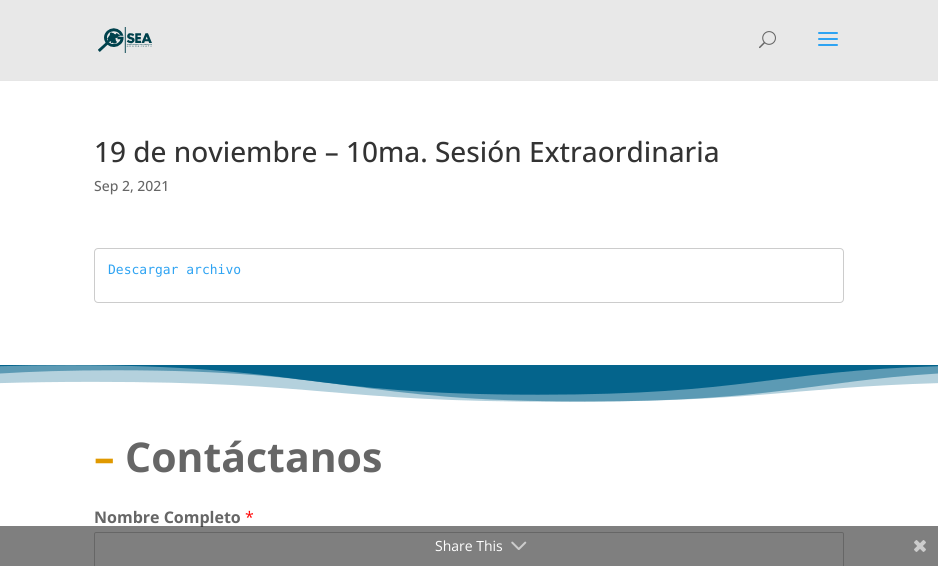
import math
import cairo

surface = cairo.ImageSurface(cairo.FORMAT_RGB24, 938, 566)
ctx = cairo.Context(surface)
options = cairo.FontOptions()
options.set_hint_metrics(cairo.HINT_METRICS_OFF)
options.set_hint_style(cairo.HINT_STYLE_NONE)
ctx.set_font_options(options)
ctx.set_miter_limit(4)


def set_color(code):
    ctx.set_source_rgb(*(v / 255 for v in bytes.fromhex(code[-6:])))


def draw_text(x, y, s, family, size, color, bold=False, italic=False):
    ctx.select_font_face(family, cairo.FONT_SLANT_ITALIC if italic else cairo.FONT_SLANT_NORMAL, cairo.FONT_WEIGHT_BOLD if bold else cairo.FONT_WEIGHT_NORMAL)
    ctx.set_font_size(size)
    set_color(color)
    ctx.move_to(x, y)
    ctx.show_text(s)


def fill_rect(x, y, w, h, color):
    set_color(color)
    ctx.rectangle(x, y, w, h)
    ctx.fill()


def rounded_rect(x, y, w, h, r):
    ctx.new_sub_path()
    for i, (u, v) in enumerate([(x + w - r, y + h - r), (x + r, y + h - r), (x + r, y + r), (x + w - r, y + r)]):
        ctx.arc(u, v, r, i * math.pi / 2, (i + 1) * math.pi / 2)
    ctx.close_path()


def draw_image(path, x, y, w, h):
    ctx.save()
    ctx.set_source_surface(cairo.ImageSurface.create_from_png(path), x, y)
    ctx.rectangle(x, y, w, h)
    ctx.fill()
    ctx.restore()


set_color("#ffffff")
ctx.paint()
fill_rect(0, 80, 938, 1, "#e6e6e6")
fill_rect(0, 0, 938, 80, "#e8e8e8")
draw_image("assets/img1.png", 98, 27, 54, 26)
draw_image("assets/img2.png", 759, 31, 17, 18)
draw_image("assets/img3.png", 818, 32, 20, 14)
draw_text(94, 162, "19 de noviembre – 10ma. Sesión Extraordinaria", "Open Sans Medium", 28, "#333333")
draw_text(94, 191, "Sep 2, 2021", "Open Sans Medium", 14, "#666666")
rounded_rect(94.5, 248.5, 749, 54, 3.5)
set_color("#cccccc")
ctx.set_line_width(1)
ctx.stroke()
draw_text(108, 274, "Descargar archivo", "DejaVu Sans Mono", 13, "#2ea3f2")
draw_image("assets/img4.png", 0, 365, 938, 37)
draw_text(94, 472, "–", "Open Sans", 41, "#e09900", bold=True)
draw_text(125, 472, "Contáctanos", "Open Sans", 41, "#666666", bold=True)
draw_text(94, 523, "Nombre Completo", "Open Sans", 16, "#666666", bold=True)
draw_text(245, 523, "*", "Open Sans", 16, "#ff0000")
rounded_rect(94.5, 532.5, 749, 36, 1.5)
set_color("#cccccc")
ctx.stroke()
ctx.set_source_rgba(0, 0, 0, 0.5)
ctx.rectangle(0, 526, 938, 40)
ctx.fill()
draw_text(435, 551, "Share This", "Open Sans", 14, "#ffffff")
draw_image("assets/img5.png", 511, 541, 16, 9)
draw_image("assets/img6.png", 914, 540, 12, 12)
surface.write_to_png("output.png")
